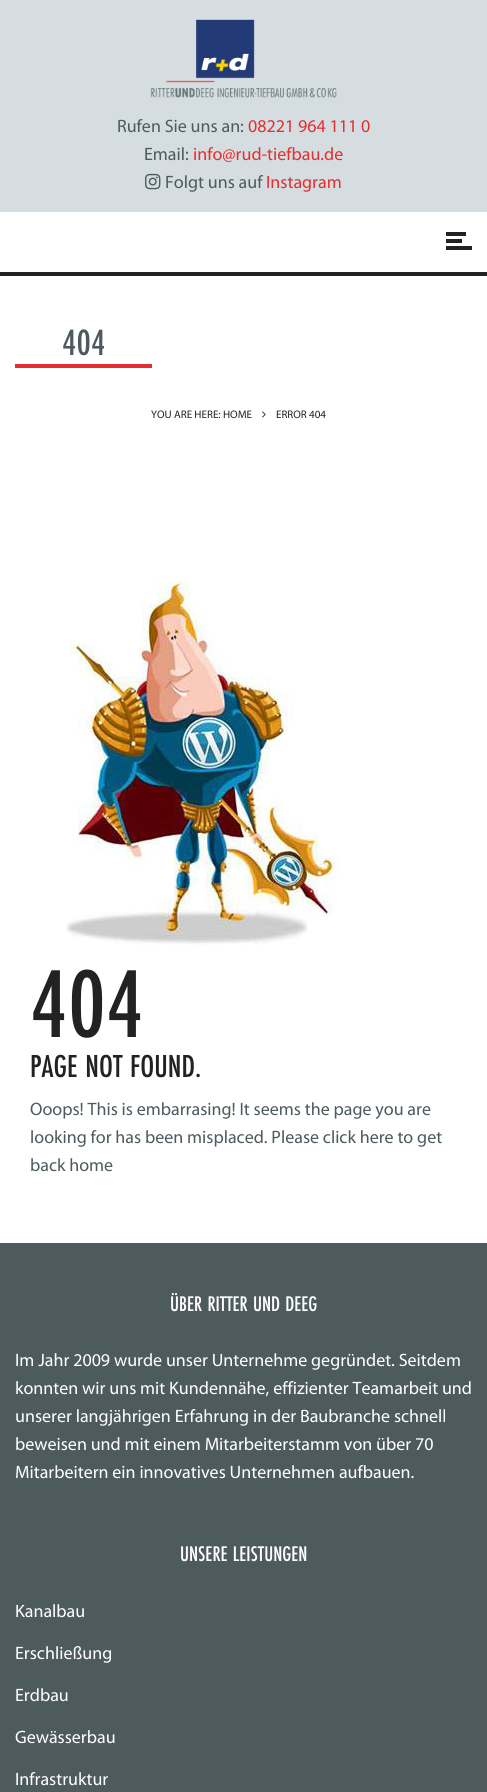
import math
import cairo

surface = cairo.ImageSurface(cairo.FORMAT_RGB24, 487, 1792)
ctx = cairo.Context(surface)
options = cairo.FontOptions()
options.set_hint_metrics(cairo.HINT_METRICS_OFF)
options.set_hint_style(cairo.HINT_STYLE_NONE)
ctx.set_font_options(options)
ctx.set_miter_limit(4)


def set_color(code):
    ctx.set_source_rgb(*(v / 255 for v in bytes.fromhex(code[-6:])))


def draw_text(x, y, s, family, size, color, bold=False, italic=False):
    ctx.select_font_face(family, cairo.FONT_SLANT_ITALIC if italic else cairo.FONT_SLANT_NORMAL, cairo.FONT_WEIGHT_BOLD if bold else cairo.FONT_WEIGHT_NORMAL)
    ctx.set_font_size(size)
    set_color(color)
    ctx.move_to(x, y)
    ctx.show_text(s)


def fill_rect(x, y, w, h, color):
    set_color(color)
    ctx.rectangle(x, y, w, h)
    ctx.fill()


def draw_image(path, x, y, w, h):
    ctx.save()
    ctx.set_source_surface(cairo.ImageSurface.create_from_png(path), x, y)
    ctx.rectangle(x, y, w, h)
    ctx.fill()
    ctx.restore()


set_color("#ffffff")
ctx.paint()
fill_rect(0, 0, 487, 212, "#d6dde0")
draw_image("assets/img1.png", 150, 19, 187, 79)
draw_text(117, 132, "Rufen Sie uns an:", "Myriad", 18, "#4d5a5e")
draw_text(248, 132, "08221 964 111 0", "Myriad", 18, "#e52e2f")
draw_text(144, 160, "Email:", "Myriad", 18, "#4d5a5e")
draw_text(193, 160, "info@rud-tiefbau.de", "Myriad", 18, "#e52e2f")
draw_image("assets/img2.png", 145, 173, 16, 17)
draw_text(165, 188, "Folgt uns auf", "Myriad", 18, "#4d5a5e")
draw_text(266, 188, "Instagram", "Myriad", 18, "#e52e2f")
fill_rect(0, 272, 487, 4, "#222222")
fill_rect(446, 246, 26, 4, "#222222")
fill_rect(446, 239, 16, 4, "#222222")
fill_rect(446, 232, 20, 4, "#222222")
fill_rect(15, 364, 137, 4, "#e52e2f")
draw_text(62, 355, "404", "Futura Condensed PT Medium", 38, "#4d5a5e")
draw_text(151, 418, "YOU ARE HERE: HOME", "Myriad", 11, "#222222")
draw_image("assets/img3.png", 262, 411, 4, 7)
draw_text(276, 418, "ERROR 404", "Myriad", 11, "#222222")
draw_image("assets/img4.png", 65, 576, 274, 369)
draw_text(30, 1037, "404", "Futura Condensed PT Medium", 100, "#222222")
draw_text(30, 1077, "PAGE NOT FOUND.", "Futura Condensed PT Medium", 33, "#222222")
draw_text(30, 1115, "Ooops! This is embarrasing! It seems the page you are", "Myriad", 18, "#4d5a5e")
draw_text(30, 1143, "looking for has been misplaced. Please click here to get", "Myriad", 18, "#4d5a5e")
draw_text(30, 1171, "back home", "Myriad", 18, "#4d5a5e")
fill_rect(0, 1243, 487, 549, "#4d5a5e")
draw_text(170, 1311, "ÜBER RITTER UND DEEG", "Futura Condensed PT Medium", 22, "#ffffff")
draw_text(15, 1366, "Im Jahr 2009 wurde unser Unternehme gegründet. Seitdem", "Myriad", 18, "#ffffff")
draw_text(15, 1394, "konnten wir uns mit Kundennähe, effizienter Teamarbeit und", "Myriad", 18, "#ffffff")
draw_text(15, 1422, "unserer langjährigen Erfahrung in der Baubranche schnell", "Myriad", 18, "#ffffff")
draw_text(15, 1450, "beweisen und mit einem Mitarbeiterstamm von über 70", "Myriad", 18, "#ffffff")
draw_text(15, 1478, "Mitarbeitern ein innovatives Unternehmen aufbauen.", "Myriad", 18, "#ffffff")
draw_text(180, 1561, "UNSERE LEISTUNGEN", "Futura Condensed PT Medium", 22, "#ffffff")
draw_text(15, 1617, "Kanalbau", "Myriad", 18, "#ffffff")
draw_text(15, 1659, "Erschließung", "Myriad", 18, "#ffffff")
draw_text(15, 1701, "Erdbau", "Myriad", 18, "#ffffff")
draw_text(15, 1743, "Gewässerbau", "Myriad", 18, "#ffffff")
draw_text(15, 1785, "Infrastruktur", "Myriad", 18, "#ffffff")
surface.write_to_png("output.png")
